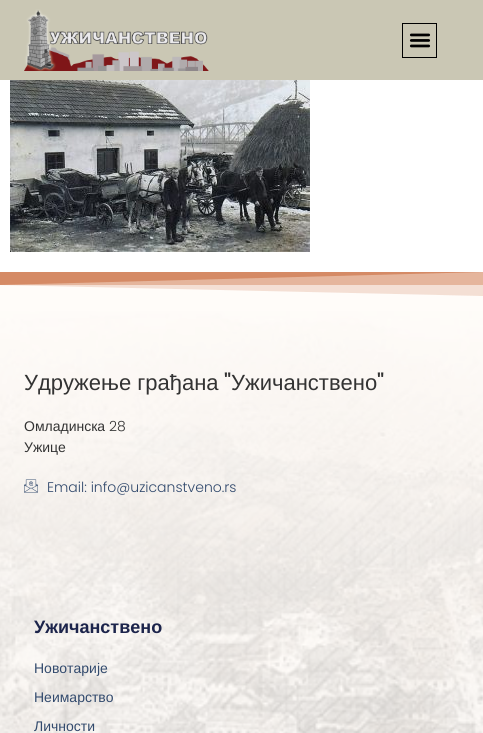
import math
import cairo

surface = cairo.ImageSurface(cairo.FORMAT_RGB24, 483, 733)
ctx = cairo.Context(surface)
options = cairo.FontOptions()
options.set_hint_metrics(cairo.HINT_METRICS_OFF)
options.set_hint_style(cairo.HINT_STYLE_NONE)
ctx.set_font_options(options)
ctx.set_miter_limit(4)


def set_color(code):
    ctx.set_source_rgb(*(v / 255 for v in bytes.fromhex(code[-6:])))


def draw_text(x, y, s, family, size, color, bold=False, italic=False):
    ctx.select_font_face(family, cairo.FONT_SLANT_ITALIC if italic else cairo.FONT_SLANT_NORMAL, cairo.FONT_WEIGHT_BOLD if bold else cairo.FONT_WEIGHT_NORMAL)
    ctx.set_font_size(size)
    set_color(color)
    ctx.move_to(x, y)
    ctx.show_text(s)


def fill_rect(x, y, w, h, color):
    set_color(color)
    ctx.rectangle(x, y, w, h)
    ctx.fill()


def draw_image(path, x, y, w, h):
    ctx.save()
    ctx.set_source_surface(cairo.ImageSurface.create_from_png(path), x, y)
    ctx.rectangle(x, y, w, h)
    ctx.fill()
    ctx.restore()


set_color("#ffffff")
ctx.paint()
fill_rect(448, 272, 35, 1, "#ebc5b2")
fill_rect(0, 285, 483, 26, "#fffcf9")
fill_rect(0, 273, 483, 12, "#ebc4af")
fill_rect(0, 0, 483, 80, "#cac7b4")
draw_image("assets/img1.png", 24, 9, 185, 62)
ctx.rectangle(402.5, 23.5, 34, 34)
set_color("#000000")
ctx.set_line_width(1)
ctx.stroke()
draw_image("assets/img2.png", 409, 33, 22, 15)
draw_image("assets/img3.png", 10, 80, 300, 172)
draw_image("assets/img4.png", 0, 311, 483, 422)
set_color("#d68b65")
ctx.new_path()
ctx.move_to(483, 272)
ctx.line_to(-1, 272)
ctx.line_to(-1, 285)
ctx.close_path()
ctx.fill()
ctx.set_source_rgba(0.839, 0.545, 0.396, 0.25)
ctx.new_path()
ctx.move_to(-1, 272)
ctx.line_to(483, 272)
ctx.line_to(483, 296)
ctx.line_to(-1, 285)
ctx.close_path()
ctx.fill()
draw_text(24, 390, "Удружење грађана", "Liberation Sans", 22, "#333333")
draw_text(224, 390, "\"", "Poppins Medium", 22, "#333333")
draw_text(231, 390, "Ужичанствено", "Liberation Sans", 22, "#333333")
draw_text(377, 390, "\"", "Poppins Medium", 22, "#333333")
draw_text(24, 431, "Омладинска", "Liberation Sans", 14, "#333333")
draw_text(109, 431, "28", "Poppins Light", 14, "#333333")
draw_text(24, 452, "Ужице", "Liberation Sans", 14, "#333333")
draw_image("assets/img5.png", 24, 479, 14, 14)
draw_text(47, 492, "Email: info@uzicanstveno.rs", "Poppins Light", 14, "#324a6d")
draw_text(34, 633, "Ужичанствено", "Liberation Sans", 18, "#1c244b", bold=True)
draw_text(34, 673, "Новотарије", "Liberation Sans", 14, "#324a6d")
draw_text(34, 702, "Неимарство", "Liberation Sans", 14, "#324a6d")
draw_text(34, 731, "Личности", "Liberation Sans", 14, "#324a6d")
surface.write_to_png("output.png")
